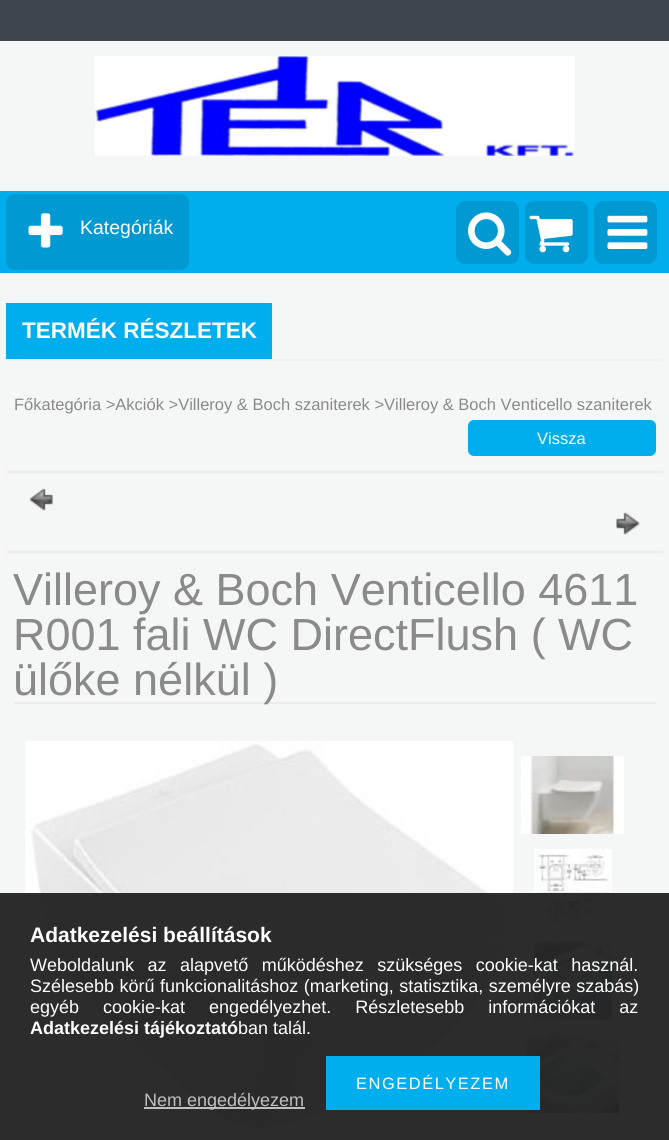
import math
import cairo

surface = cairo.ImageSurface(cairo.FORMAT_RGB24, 669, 1140)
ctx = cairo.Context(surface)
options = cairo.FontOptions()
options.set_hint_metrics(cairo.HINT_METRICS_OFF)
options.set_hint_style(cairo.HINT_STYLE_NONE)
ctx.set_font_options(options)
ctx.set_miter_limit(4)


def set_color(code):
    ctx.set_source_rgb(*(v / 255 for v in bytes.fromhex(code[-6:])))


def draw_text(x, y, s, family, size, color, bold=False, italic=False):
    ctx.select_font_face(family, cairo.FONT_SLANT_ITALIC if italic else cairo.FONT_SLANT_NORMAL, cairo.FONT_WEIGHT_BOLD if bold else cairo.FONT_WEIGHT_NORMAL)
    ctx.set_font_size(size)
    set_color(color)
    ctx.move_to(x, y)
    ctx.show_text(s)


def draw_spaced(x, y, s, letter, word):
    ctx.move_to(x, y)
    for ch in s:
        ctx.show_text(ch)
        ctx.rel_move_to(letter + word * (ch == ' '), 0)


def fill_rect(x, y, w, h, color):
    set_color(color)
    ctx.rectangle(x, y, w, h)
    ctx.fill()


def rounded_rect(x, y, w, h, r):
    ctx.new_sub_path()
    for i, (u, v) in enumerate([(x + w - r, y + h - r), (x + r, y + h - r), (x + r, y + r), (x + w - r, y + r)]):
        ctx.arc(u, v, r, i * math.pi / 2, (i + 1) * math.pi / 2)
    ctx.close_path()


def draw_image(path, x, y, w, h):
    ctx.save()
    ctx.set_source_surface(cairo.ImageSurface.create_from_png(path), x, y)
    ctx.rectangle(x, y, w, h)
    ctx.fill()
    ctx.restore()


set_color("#f5f6f6")
ctx.paint()
fill_rect(0, 0, 669, 41, "#3e454c")
draw_image("assets/img1.png", 95, 56, 480, 100)
fill_rect(0, 191, 669, 82, "#00aeed")
set_color("#0099d1")
rounded_rect(6, 194, 183, 76, 9)
ctx.fill()
draw_image("assets/img2.png", 28, 213, 35, 35)
draw_text(80, 234, "Kategóriák", "Liberation Sans", 19.5, "#ffffff")
set_color("#0099d1")
rounded_rect(456, 201, 63, 63, 9)
ctx.fill()
draw_image("assets/img3.png", 468, 212, 44, 44)
rounded_rect(525, 201, 63, 63, 9)
ctx.fill()
draw_image("assets/img4.png", 529, 215, 44, 38)
rounded_rect(594, 201, 63, 63, 9)
ctx.fill()
draw_image("assets/img5.png", 607, 215, 41, 34)
fill_rect(6, 359, 657, 2, "#efefef")
fill_rect(6, 303, 266, 56, "#00aeed")
draw_text(22, 338, "TERMÉK RÉSZLETEK", "Liberation Sans", 22.5, "#ffffff", bold=True)
draw_text(14, 410, "Főkategória >Akciók >Villeroy & Boch szaniterek >Villeroy & Boch Venticello szaniterek", "Liberation Sans", 16.5, "#8b8a8a")
set_color("#00aeed")
rounded_rect(468, 420, 188, 36, 6)
ctx.fill()
draw_text(537, 444, "Vissza", "Liberation Sans", 16.5, "#ffffff")
fill_rect(6, 471, 657, 2, "#eceaea")
draw_image("assets/img6.png", 29, 488, 24, 23)
draw_image("assets/img7.png", 616, 512, 24, 23)
fill_rect(6, 551, 657, 2, "#eceaea")
fill_rect(14, 702, 642, 2, "#eceaea")
draw_text(13, 605, "Villeroy & Boch Venticello 4611", "Liberation Sans", 45, "#8b8a8a")
draw_text(13, 650, "R001 fali WC DirectFlush ( WC", "Liberation Sans", 45, "#8b8a8a")
draw_text(13, 695, "ülőke nélkül )", "Liberation Sans", 45, "#8b8a8a")
draw_image("assets/img8.png", 25, 741, 488, 392)
draw_image("assets/img9.png", 521, 756, 103, 78)
draw_image("assets/img10.png", 534, 849, 78, 78)
draw_image("assets/img11.png", 534, 942, 78, 78)
draw_image("assets/img12.png", 526, 1035, 94, 78)
ctx.set_source_rgba(0.133, 0.133, 0.133, 0.95)
ctx.rectangle(0, 893, 669, 247)
ctx.fill()
draw_text(30, 942, "Adatkezelési beállítások", "Liberation Sans", 21, "#ffffff", bold=True)
ctx.select_font_face("Liberation Sans")
ctx.set_font_size(18)
draw_spaced(30, 971, "Weboldalunk az alapvető működéshez szükséges cookie-kat használ.", 0, 8.5)
draw_spaced(30, 992, "Szélesebb körű funkcionalitáshoz (marketing, statisztika, személyre szabás)", 0, 0.5)
draw_spaced(30, 1013, "egyéb cookie-kat engedélyezhet. Részletesebb információkat az", 0, 19)
draw_text(30, 1034, "Adatkezelési tájékoztató", "Liberation Sans", 18, "#ffffff", bold=True)
draw_text(238, 1034, "ban talál.", "Liberation Sans", 18, "#ffffff")
fill_rect(326, 1056, 214, 54, "#00aeed")
ctx.set_font_size(16.5)
set_color("#ffffff")
draw_spaced(356, 1089, "ENGEDÉLYEZEM", 1.5, 0)
ctx.set_source_rgba(1, 1, 1, 0.7)
ctx.rectangle(144, 1107, 161, 2)
ctx.fill()
draw_text(144, 1106, "Nem engedélyezem", "Liberation Sans", 18, "#c0c0c0")
surface.write_to_png("output.png")
